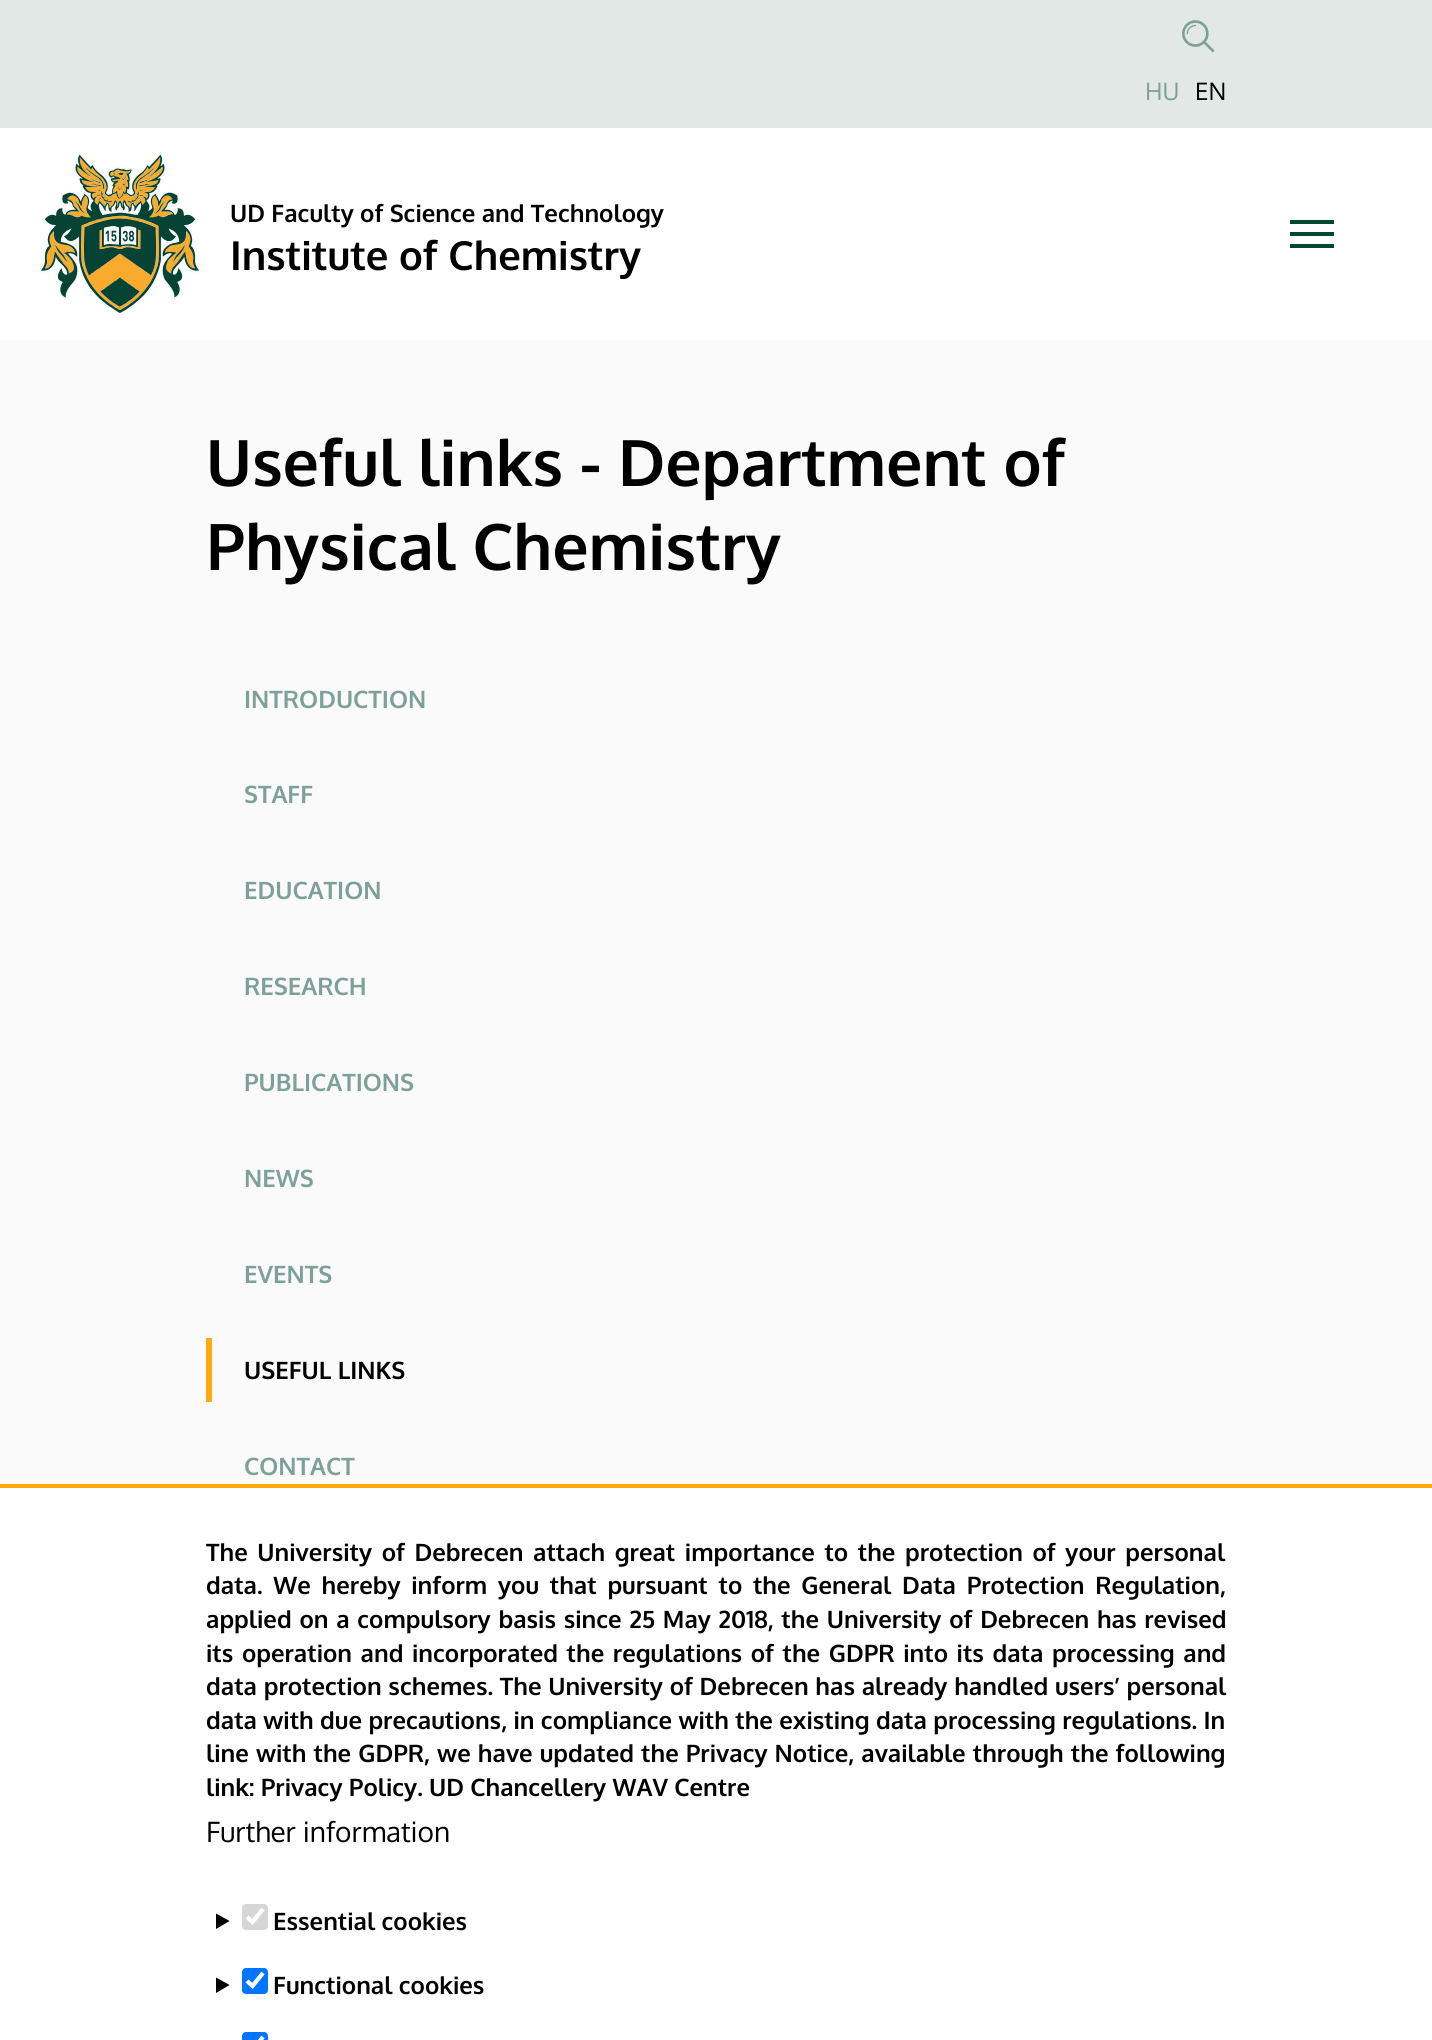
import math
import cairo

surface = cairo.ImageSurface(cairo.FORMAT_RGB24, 1432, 2040)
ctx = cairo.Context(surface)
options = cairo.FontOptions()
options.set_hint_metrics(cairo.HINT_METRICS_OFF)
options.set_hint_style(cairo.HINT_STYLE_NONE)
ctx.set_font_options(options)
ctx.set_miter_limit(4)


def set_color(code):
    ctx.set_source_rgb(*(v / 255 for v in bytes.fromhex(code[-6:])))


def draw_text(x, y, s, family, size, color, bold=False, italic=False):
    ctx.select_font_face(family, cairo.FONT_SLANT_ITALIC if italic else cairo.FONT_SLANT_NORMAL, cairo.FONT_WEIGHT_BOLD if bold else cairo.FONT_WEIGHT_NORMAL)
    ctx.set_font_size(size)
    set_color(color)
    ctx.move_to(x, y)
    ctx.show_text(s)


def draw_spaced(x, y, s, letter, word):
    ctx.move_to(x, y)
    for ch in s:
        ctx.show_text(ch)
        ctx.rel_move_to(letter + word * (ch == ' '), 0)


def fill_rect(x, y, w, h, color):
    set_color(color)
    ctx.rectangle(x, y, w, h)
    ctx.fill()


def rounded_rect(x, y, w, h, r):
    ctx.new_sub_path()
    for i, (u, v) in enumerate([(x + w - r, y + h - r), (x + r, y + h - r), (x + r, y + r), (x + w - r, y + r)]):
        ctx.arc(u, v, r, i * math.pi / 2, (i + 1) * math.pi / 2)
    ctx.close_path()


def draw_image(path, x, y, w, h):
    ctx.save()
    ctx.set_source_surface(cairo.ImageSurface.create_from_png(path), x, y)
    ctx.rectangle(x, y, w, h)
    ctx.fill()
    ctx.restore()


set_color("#fafafa")
ctx.paint()
fill_rect(0, 0, 1432, 128, "#e1e8e6")
draw_image("assets/img1.png", 1182, 20, 33, 33)
draw_text(1145, 100, "HU", "Oxygen", 24, "#7da198")
draw_text(1195, 100, "EN", "Oxygen", 24, "#000000")
fill_rect(0, 128, 1432, 212, "#ffffff")
draw_image("assets/img2.png", 38, 153, 163, 162)
draw_text(230, 222, "UD Faculty of Science and Technology", "Oxygen", 24, "#000000", bold=True)
draw_text(230, 270, "Institute of Chemistry", "Oxygen", 40, "#000000", bold=True)
fill_rect(1290, 220, 44, 4, "#004735")
fill_rect(1290, 232, 44, 4, "#004735")
fill_rect(1290, 244, 44, 4, "#004735")
draw_text(206, 486, "Useful links - Department of", "Oxygen", 64, "#000000", bold=True)
draw_text(206, 570, "Physical Chemistry", "Oxygen", 64, "#000000", bold=True)
draw_text(244, 708, "INTRODUCTION", "Oxygen", 24, "#7da198", bold=True)
draw_text(244, 803, "STAFF", "Oxygen", 24, "#7da198", bold=True)
draw_text(244, 899, "EDUCATION", "Oxygen", 24, "#7da198", bold=True)
draw_text(244, 995, "RESEARCH", "Oxygen", 24, "#7da198", bold=True)
draw_text(244, 1091, "PUBLICATIONS", "Oxygen", 24, "#7da198", bold=True)
draw_text(244, 1187, "NEWS", "Oxygen", 24, "#7da198", bold=True)
draw_text(244, 1283, "EVENTS", "Oxygen", 24, "#7da198", bold=True)
fill_rect(206, 1338, 6, 64, "#ffab0d")
draw_text(244, 1379, "USEFUL LINKS", "Oxygen", 24, "#000000", bold=True)
draw_text(244, 1475, "CONTACT", "Oxygen", 24, "#7da198", bold=True)
fill_rect(0, 1488, 1432, 552, "#ffffff")
fill_rect(0, 1484, 1432, 4, "#ffab0d")
set_color("#000000")
draw_spaced(206, 1561, "The University of Debrecen attach great importance to the protection of your personal", 0, 3.25)
draw_spaced(206, 1594, "data. We hereby inform you that pursuant to the General Data Protection Regulation,", 0, 4.4)
draw_spaced(206, 1628, "applied on a compulsory basis since 25 May 2018, the University of Debrecen has revised", 0, 1.4)
draw_spaced(206, 1662, "its operation and incorporated the regulations of the GDPR into its data processing and", 0, 2.25)
draw_spaced(206, 1695, "data protection schemes. The University of Debrecen has already handled users’ personal", 0, 0.4)
draw_text(206, 1729, "data with due precautions, in compliance with the existing data processing regulations. In", "Oxygen", 24, "#000000", bold=True)
draw_spaced(206, 1762, "line with the GDPR, we have updated the Privacy Notice, available through the following", 0, 0.75)
draw_text(206, 1796, "link: Privacy Policy. UD Chancellery WAV Centre", "Oxygen", 24, "#000000", bold=True)
draw_text(206, 1842, "Further information", "Oxygen", 28, "#000000")
ctx.new_path()
ctx.move_to(216, 1913.5)
ctx.line_to(229.5, 1921)
ctx.line_to(216, 1929)
ctx.close_path()
ctx.fill()
set_color("#d6d6d6")
rounded_rect(242, 1904, 26, 26, 4)
ctx.fill()
ctx.new_path()
ctx.move_to(247, 1917)
ctx.line_to(252.5, 1922)
ctx.line_to(263, 1909)
set_color("#ffffff")
ctx.set_line_width(4.2)
ctx.stroke()
draw_text(273, 1930, "Essential cookies", "Oxygen", 24, "#000000", bold=True)
ctx.new_path()
ctx.move_to(216, 1977.5)
ctx.line_to(229.5, 1985)
ctx.line_to(216, 1993)
ctx.close_path()
ctx.fill()
set_color("#0075ff")
rounded_rect(242, 1968, 26, 26, 4)
ctx.fill()
ctx.new_path()
ctx.move_to(247, 1981)
ctx.line_to(252.5, 1986)
ctx.line_to(263, 1973)
set_color("#ffffff")
ctx.stroke()
draw_text(273, 1994, "Functional cookies", "Oxygen", 24, "#000000", bold=True)
set_color("#0075ff")
rounded_rect(242, 2032, 26, 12, 4)
ctx.fill()
ctx.new_path()
ctx.move_to(247, 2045)
ctx.line_to(252.5, 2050)
ctx.line_to(263, 2037)
set_color("#ffffff")
ctx.stroke()
surface.write_to_png("output.png")
